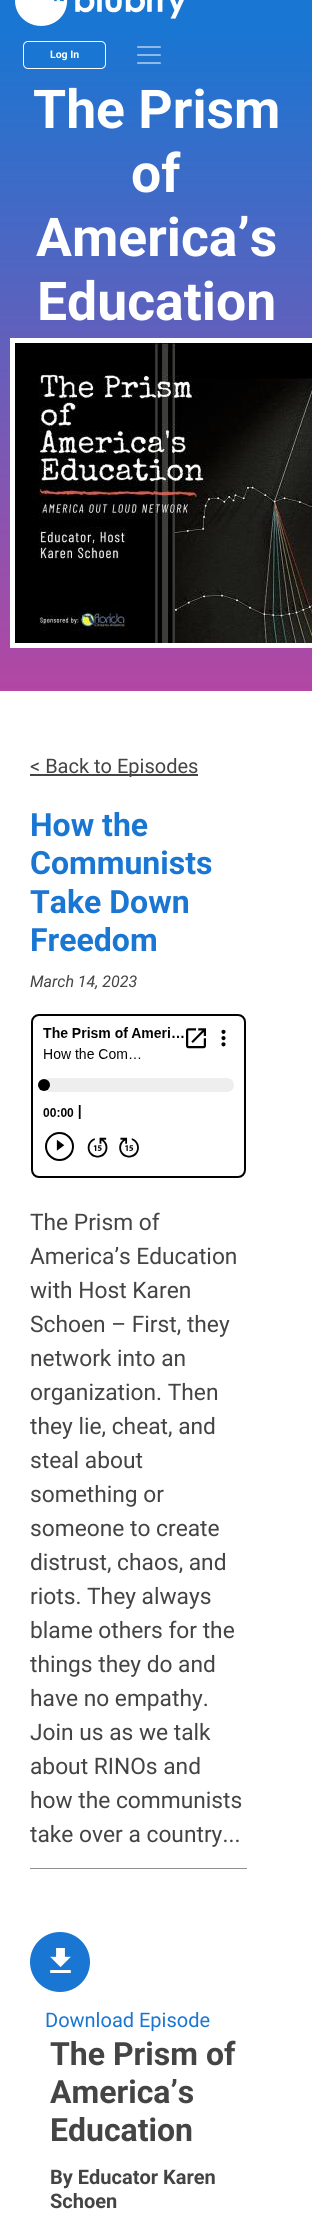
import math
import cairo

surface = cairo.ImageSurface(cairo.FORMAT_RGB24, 312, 2213)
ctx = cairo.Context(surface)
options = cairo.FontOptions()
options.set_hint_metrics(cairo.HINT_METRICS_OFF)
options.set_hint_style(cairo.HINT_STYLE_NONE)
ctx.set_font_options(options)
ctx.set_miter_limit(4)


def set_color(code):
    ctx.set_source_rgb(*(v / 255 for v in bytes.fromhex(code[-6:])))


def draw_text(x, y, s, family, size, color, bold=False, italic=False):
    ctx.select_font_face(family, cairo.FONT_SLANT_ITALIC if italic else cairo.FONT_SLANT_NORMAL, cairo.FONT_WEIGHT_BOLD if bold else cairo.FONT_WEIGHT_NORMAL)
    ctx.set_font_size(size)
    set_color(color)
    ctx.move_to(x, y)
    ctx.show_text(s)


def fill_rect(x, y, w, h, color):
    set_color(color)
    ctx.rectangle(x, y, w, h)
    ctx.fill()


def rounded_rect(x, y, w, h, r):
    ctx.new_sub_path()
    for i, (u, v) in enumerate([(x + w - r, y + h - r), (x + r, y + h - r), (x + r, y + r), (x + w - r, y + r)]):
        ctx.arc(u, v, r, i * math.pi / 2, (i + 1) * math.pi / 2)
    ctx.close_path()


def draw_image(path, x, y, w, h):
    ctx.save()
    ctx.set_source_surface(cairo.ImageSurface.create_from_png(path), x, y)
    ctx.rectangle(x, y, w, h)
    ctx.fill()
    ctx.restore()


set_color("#ffffff")
ctx.paint()
fill_rect(0, 0, 312, 31, "#1976d2")
draw_image("assets/img1.png", 15, 0, 169, 26)
gradient = cairo.LinearGradient(156, 31, 156, 691)
gradient.add_color_stop_rgba(0, 0.098, 0.463, 0.824, 1)
gradient.add_color_stop_rgba(1, 0.702, 0.278, 0.639, 1)
ctx.set_source(gradient)
ctx.rectangle(0, 31, 312, 660)
ctx.fill()
set_color("#1976d2")
rounded_rect(23.5, 41.5, 82, 27, 4.5)
ctx.fill_preserve()
set_color("#ffffff")
ctx.set_line_width(1)
ctx.stroke()
draw_text(50, 58, "Log In", "Roboto", 10.5, "#ffffff", bold=True)
draw_image("assets/img2.png", 137, 46, 24, 18)
draw_text(33, 128, "The Prism", "Roboto", 53.5, "#ffffff", bold=True)
draw_text(131, 192, "of", "Roboto", 53.5, "#ffffff", bold=True)
draw_text(36, 256, "America’s", "Roboto", 53.5, "#ffffff", bold=True)
draw_text(37, 320, "Education", "Roboto", 53.5, "#ffffff", bold=True)
draw_image("assets/img3.png", 15, 343, 297, 300)
ctx.rectangle(12.5, 340.5, 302, 305)
ctx.set_line_width(5)
ctx.stroke()
fill_rect(30, 774, 168, 2, "#444444")
draw_text(30, 773, "< Back to Episodes", "Roboto", 20, "#444444")
draw_text(30, 836, "How the", "Roboto", 32, "#1976d2", bold=True)
draw_text(30, 874, "Communists", "Roboto", 32, "#1976d2", bold=True)
draw_text(30, 913, "Take Down", "Roboto", 32, "#1976d2", bold=True)
draw_text(30, 951, "Freedom", "Roboto", 32, "#1976d2", bold=True)
draw_text(30, 987, "March 14, 2023", "Roboto", 16, "#444444", italic=True)
draw_image("assets/img4.png", 31, 1014, 215, 164)
fill_rect(30, 1868, 217, 1, "#909090")
draw_text(30, 1230, "The Prism of", "Roboto", 22.75, "#444444")
draw_text(30, 1264, "America’s Education", "Roboto", 22.75, "#444444")
draw_text(30, 1298, "with Host Karen", "Roboto", 22.75, "#444444")
draw_text(30, 1332, "Schoen – First, they", "Roboto", 22.75, "#444444")
draw_text(30, 1366, "network into an", "Roboto", 22.75, "#444444")
draw_text(30, 1400, "organization. Then", "Roboto", 22.75, "#444444")
draw_text(30, 1434, "they lie, cheat, and", "Roboto", 22.75, "#444444")
draw_text(30, 1468, "steal about", "Roboto", 22.75, "#444444")
draw_text(30, 1502, "something or", "Roboto", 22.75, "#444444")
draw_text(30, 1536, "someone to create", "Roboto", 22.75, "#444444")
draw_text(30, 1570, "distrust, chaos, and", "Roboto", 22.75, "#444444")
draw_text(30, 1604, "riots. They always", "Roboto", 22.75, "#444444")
draw_text(30, 1638, "blame others for the", "Roboto", 22.75, "#444444")
draw_text(30, 1672, "things they do and", "Roboto", 22.75, "#444444")
draw_text(30, 1706, "have no empathy.", "Roboto", 22.75, "#444444")
draw_text(30, 1740, "Join us as we talk", "Roboto", 22.75, "#444444")
draw_text(30, 1774, "about RINOs and", "Roboto", 22.75, "#444444")
draw_text(30, 1808, "how the communists", "Roboto", 22.75, "#444444")
draw_text(30, 1842, "take over a country...", "Roboto", 22.75, "#444444")
set_color("#1976d2")
ctx.new_path()
ctx.arc(60, 1962, 30, 0, 2 * math.pi)
ctx.fill()
draw_image("assets/img5.png", 50, 1948, 21, 25)
draw_text(45, 2027, "Download Episode", "Roboto", 20, "#1976d2")
draw_text(50, 2065, "The Prism of", "Roboto", 32, "#444444", bold=True)
draw_text(50, 2103, "America’s", "Roboto", 32, "#444444", bold=True)
draw_text(50, 2141, "Education", "Roboto", 32, "#444444", bold=True)
draw_text(50, 2184, "By Educator Karen", "Roboto", 20, "#444444", bold=True)
draw_text(50, 2208, "Schoen", "Roboto", 20, "#444444", bold=True)
surface.write_to_png("output.png")
